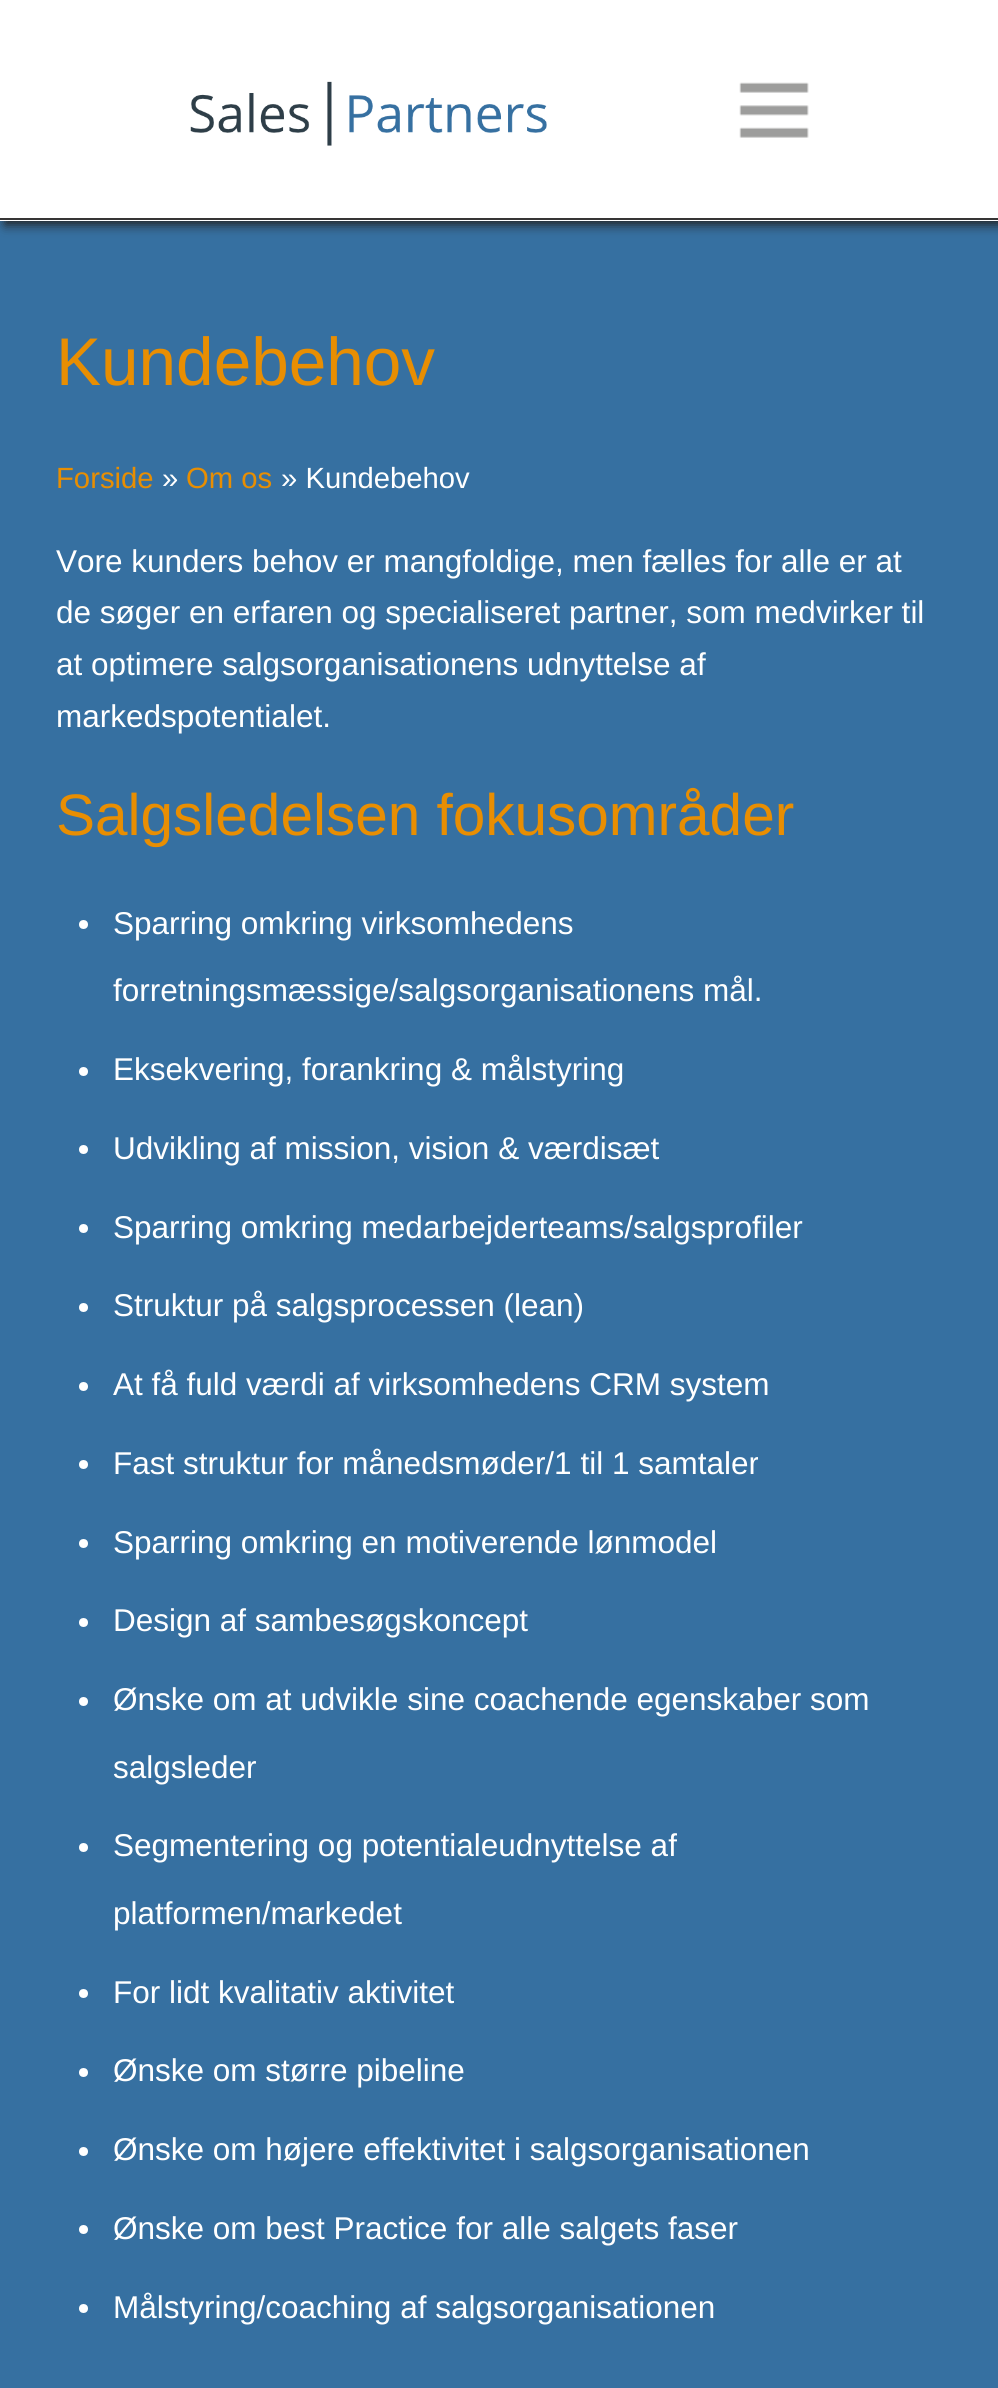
import math
import cairo

surface = cairo.ImageSurface(cairo.FORMAT_RGB24, 998, 2388)
ctx = cairo.Context(surface)
options = cairo.FontOptions()
options.set_hint_metrics(cairo.HINT_METRICS_OFF)
options.set_hint_style(cairo.HINT_STYLE_NONE)
ctx.set_font_options(options)
ctx.set_miter_limit(4)


def set_color(code):
    ctx.set_source_rgb(*(v / 255 for v in bytes.fromhex(code[-6:])))


def draw_text(x, y, s, family, size, color, bold=False, italic=False):
    ctx.select_font_face(family, cairo.FONT_SLANT_ITALIC if italic else cairo.FONT_SLANT_NORMAL, cairo.FONT_WEIGHT_BOLD if bold else cairo.FONT_WEIGHT_NORMAL)
    ctx.set_font_size(size)
    set_color(color)
    ctx.move_to(x, y)
    ctx.show_text(s)


def fill_rect(x, y, w, h, color):
    set_color(color)
    ctx.rectangle(x, y, w, h)
    ctx.fill()


def rounded_rect(x, y, w, h, r):
    ctx.new_sub_path()
    for i, (u, v) in enumerate([(x + w - r, y + h - r), (x + r, y + h - r), (x + r, y + r), (x + w - r, y + r)]):
        ctx.arc(u, v, r, i * math.pi / 2, (i + 1) * math.pi / 2)
    ctx.close_path()


def draw_shadow(x, y, w, h, r, blur, alpha):
    ctx.push_group_with_content(cairo.CONTENT_ALPHA)
    ctx.set_operator(cairo.OPERATOR_SOURCE)
    for i in range(15, -16, -2):
        e = blur * i / 6
        if min(w, h) + 2 * e > 0:
            ctx.set_source_rgba(0, 0, 0, alpha * math.erfc((i - 1) / 8.5) / 2)
            rounded_rect(x - e, y - e, w + 2 * e, h + 2 * e, max(0, min(r + e + blur * .6, min(w, h) / 2 + e)))
            ctx.fill()
    ctx.mask(ctx.pop_group())


def draw_image(path, x, y, w, h):
    ctx.save()
    ctx.set_source_surface(cairo.ImageSurface.create_from_png(path), x, y)
    ctx.rectangle(x, y, w, h)
    ctx.fill()
    ctx.restore()


set_color("#ffffff")
ctx.paint()
fill_rect(0, 221, 998, 2167, "#3670a1")
ctx.save()
ctx.set_fill_rule(cairo.FILL_RULE_EVEN_ODD)
ctx.new_path()
ctx.move_to(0, 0)
ctx.line_to(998, 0)
ctx.line_to(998, 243)
ctx.line_to(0, 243)
ctx.close_path()
ctx.move_to(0, 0)
ctx.line_to(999, 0)
ctx.line_to(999, 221)
ctx.line_to(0, 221)
ctx.close_path()
ctx.clip()
set_color("#222222")
draw_shadow(5, 5, 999, 220, 0, 5.5, 1)
ctx.restore()
fill_rect(0, 218, 998, 2, "#363535")
draw_image("assets/img1.png", 190, 81, 357, 65)
draw_image("assets/img2.png", 739, 82, 70, 56)
draw_text(56, 385, "Kundebehov", "Liberation Sans", 67.5, "#e88e02")
draw_text(56, 488, "Forside", "Liberation Sans", 29.25, "#e88e02")
draw_text(162, 488, "»", "Liberation Sans", 29.25, "#ffffff")
draw_text(186, 488, "Om os", "Liberation Sans", 29.25, "#e88e02")
draw_text(281, 488, "» Kundebehov", "Liberation Sans", 29.25, "#ffffff")
draw_text(56, 572, "Vore kunders behov er mangfoldige, men fælles for alle er at", "Liberation Sans", 31.5, "#ffffff")
draw_text(56, 623, "de søger en erfaren og specialiseret partner, som medvirker til", "Liberation Sans", 31.5, "#ffffff")
draw_text(56, 675, "at optimere salgsorganisationens udnyttelse af", "Liberation Sans", 31.5, "#ffffff")
draw_text(56, 727, "markedspotentialet.", "Liberation Sans", 31.5, "#ffffff")
draw_text(56, 835, "Salgsledelsen fokusområder", "Liberation Sans", 58.5, "#e88e02")
set_color("#ffffff")
ctx.new_path()
ctx.arc(83.5, 924.5, 4.5, 0, 2 * math.pi)
ctx.fill()
draw_text(113, 934, "Sparring omkring virksomhedens", "Liberation Sans", 31.5, "#ffffff")
draw_text(113, 1001, "forretningsmæssige/salgsorganisationens mål.", "Liberation Sans", 31.5, "#ffffff")
ctx.new_path()
ctx.arc(83.5, 1071.5, 4.5, 0, 2 * math.pi)
ctx.fill()
draw_text(113, 1080, "Eksekvering, forankring & målstyring", "Liberation Sans", 31.5, "#ffffff")
ctx.new_path()
ctx.arc(83.5, 1149.5, 4.5, 0, 2 * math.pi)
ctx.fill()
draw_text(113, 1159, "Udvikling af mission, vision & værdisæt", "Liberation Sans", 31.5, "#ffffff")
ctx.new_path()
ctx.arc(83.5, 1228.5, 4.5, 0, 2 * math.pi)
ctx.fill()
draw_text(113, 1238, "Sparring omkring medarbejderteams/salgsprofiler", "Liberation Sans", 31.5, "#ffffff")
ctx.new_path()
ctx.arc(83.5, 1307.5, 4.5, 0, 2 * math.pi)
ctx.fill()
draw_text(113, 1316, "Struktur på salgsprocessen (lean)", "Liberation Sans", 31.5, "#ffffff")
ctx.new_path()
ctx.arc(83.5, 1386.5, 4.5, 0, 2 * math.pi)
ctx.fill()
draw_text(113, 1395, "At få fuld værdi af virksomhedens CRM system", "Liberation Sans", 31.5, "#ffffff")
ctx.new_path()
ctx.arc(83.5, 1464.5, 4.5, 0, 2 * math.pi)
ctx.fill()
draw_text(113, 1474, "Fast struktur for månedsmøder/1 til 1 samtaler", "Liberation Sans", 31.5, "#ffffff")
ctx.new_path()
ctx.arc(83.5, 1543.5, 4.5, 0, 2 * math.pi)
ctx.fill()
draw_text(113, 1553, "Sparring omkring en motiverende lønmodel", "Liberation Sans", 31.5, "#ffffff")
ctx.new_path()
ctx.arc(83.5, 1622.5, 4.5, 0, 2 * math.pi)
ctx.fill()
draw_text(113, 1631, "Design af sambesøgskoncept", "Liberation Sans", 31.5, "#ffffff")
ctx.new_path()
ctx.arc(83.5, 1701.5, 4.5, 0, 2 * math.pi)
ctx.fill()
draw_text(113, 1710, "Ønske om at udvikle sine coachende egenskaber som", "Liberation Sans", 31.5, "#ffffff")
draw_text(113, 1778, "salgsleder", "Liberation Sans", 31.5, "#ffffff")
ctx.new_path()
ctx.arc(83.5, 1847.5, 4.5, 0, 2 * math.pi)
ctx.fill()
draw_text(113, 1856, "Segmentering og potentialeudnyttelse af", "Liberation Sans", 31.5, "#ffffff")
draw_text(113, 1924, "platformen/markedet", "Liberation Sans", 31.5, "#ffffff")
ctx.new_path()
ctx.arc(83.5, 1993.5, 4.5, 0, 2 * math.pi)
ctx.fill()
draw_text(113, 2003, "For lidt kvalitativ aktivitet", "Liberation Sans", 31.5, "#ffffff")
ctx.new_path()
ctx.arc(83.5, 2072.5, 4.5, 0, 2 * math.pi)
ctx.fill()
draw_text(113, 2081, "Ønske om større pibeline", "Liberation Sans", 31.5, "#ffffff")
ctx.new_path()
ctx.arc(83.5, 2151.5, 4.5, 0, 2 * math.pi)
ctx.fill()
draw_text(113, 2160, "Ønske om højere effektivitet i salgsorganisationen", "Liberation Sans", 31.5, "#ffffff")
ctx.new_path()
ctx.arc(83.5, 2229.5, 4.5, 0, 2 * math.pi)
ctx.fill()
draw_text(113, 2239, "Ønske om best Practice for alle salgets faser", "Liberation Sans", 31.5, "#ffffff")
ctx.new_path()
ctx.arc(83.5, 2308.5, 4.5, 0, 2 * math.pi)
ctx.fill()
draw_text(113, 2318, "Målstyring/coaching af salgsorganisationen", "Liberation Sans", 31.5, "#ffffff")
surface.write_to_png("output.png")
